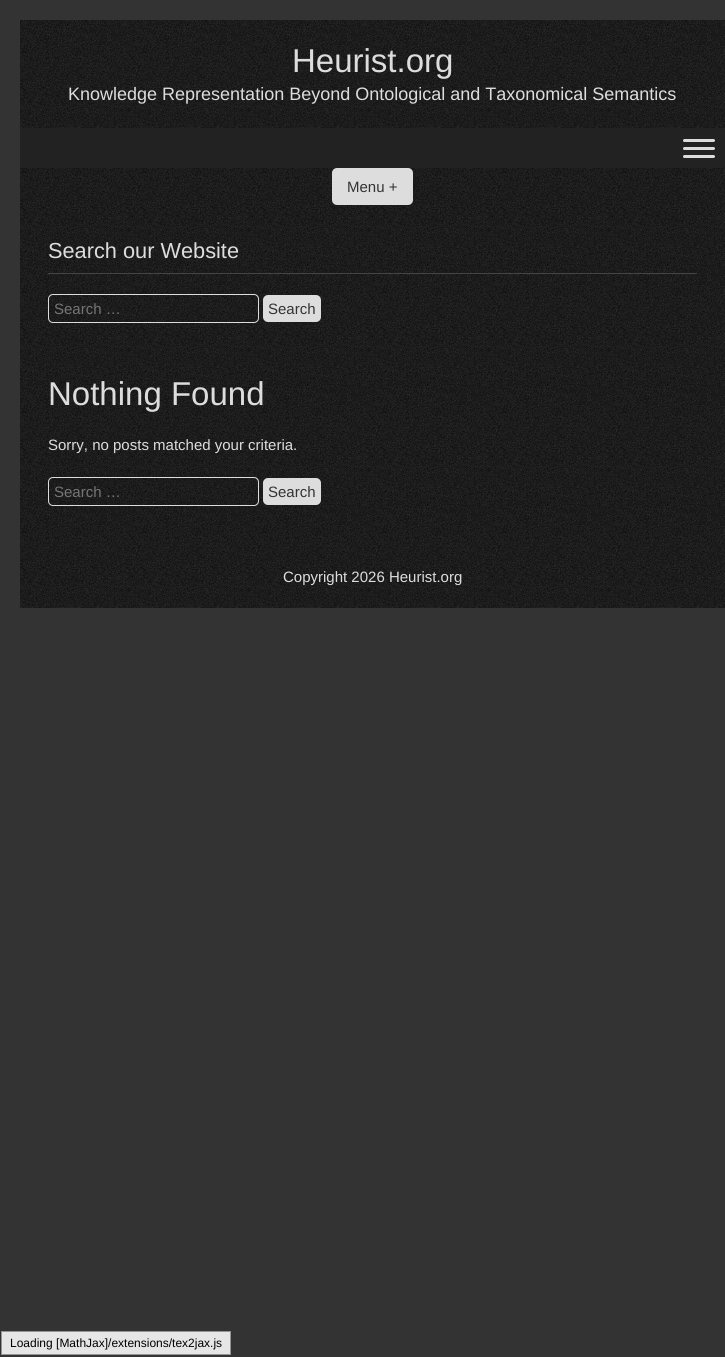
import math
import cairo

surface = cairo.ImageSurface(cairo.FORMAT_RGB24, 725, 1357)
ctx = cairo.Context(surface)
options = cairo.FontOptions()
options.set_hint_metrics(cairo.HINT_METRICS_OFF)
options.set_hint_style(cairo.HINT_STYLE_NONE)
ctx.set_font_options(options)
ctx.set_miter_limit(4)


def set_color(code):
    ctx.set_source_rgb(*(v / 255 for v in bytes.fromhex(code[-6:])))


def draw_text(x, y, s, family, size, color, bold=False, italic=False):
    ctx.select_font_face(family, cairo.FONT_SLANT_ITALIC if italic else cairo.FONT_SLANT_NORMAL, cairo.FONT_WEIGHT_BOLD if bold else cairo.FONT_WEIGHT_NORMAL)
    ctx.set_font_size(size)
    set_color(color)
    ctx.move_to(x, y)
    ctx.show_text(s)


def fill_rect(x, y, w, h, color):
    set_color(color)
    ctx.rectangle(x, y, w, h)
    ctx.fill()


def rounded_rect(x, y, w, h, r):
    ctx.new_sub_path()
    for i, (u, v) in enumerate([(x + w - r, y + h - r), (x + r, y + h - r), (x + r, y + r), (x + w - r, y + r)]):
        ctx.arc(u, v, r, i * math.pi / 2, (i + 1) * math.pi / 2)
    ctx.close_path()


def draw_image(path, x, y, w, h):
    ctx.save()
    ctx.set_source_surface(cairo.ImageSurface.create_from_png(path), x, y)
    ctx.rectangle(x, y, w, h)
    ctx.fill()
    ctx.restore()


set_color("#333333")
ctx.paint()
draw_image("assets/img1.png", 20, 20, 705, 588)
draw_text(292, 72, "Heurist.org", "Liberation Sans", 33, "#dddddd")
draw_text(68, 100, "Knowledge Representation Beyond Ontological and Taxonomical Semantics", "Liberation Sans", 18, "#dddddd")
set_color("#222222")
rounded_rect(20, 128, 705, 40, 2)
ctx.fill()
set_color("#dddddd")
rounded_rect(683, 139, 32, 3, 1.5)
ctx.fill()
rounded_rect(683, 147, 32, 3, 1.5)
ctx.fill()
rounded_rect(683, 155, 32, 3, 1.5)
ctx.fill()
rounded_rect(332, 168, 81, 37, 5)
ctx.fill()
draw_text(347, 192, "Menu +", "Liberation Sans", 15, "#333333")
fill_rect(48, 273, 649, 1, "#444444")
draw_text(48, 258, "Search our Website", "Liberation Sans", 21.75, "#dddddd")
rounded_rect(48.5, 294.5, 210, 28, 4.5)
ctx.set_line_width(1)
ctx.stroke()
draw_text(54, 314, "Search …", "Liberation Sans", 15, "#757575")
set_color("#dddddd")
rounded_rect(263, 295, 58, 27, 5)
ctx.fill()
draw_text(268, 314, "Search", "Liberation Sans", 15, "#333333")
draw_text(48, 405, "Nothing Found", "Liberation Sans", 33, "#dddddd")
draw_text(48, 450, "Sorry, no posts matched your criteria.", "Liberation Sans", 15, "#dddddd")
rounded_rect(48.5, 477.5, 210, 28, 4.5)
ctx.stroke()
draw_text(54, 497, "Search …", "Liberation Sans", 15, "#757575")
set_color("#dddddd")
rounded_rect(263, 478, 58, 27, 5)
ctx.fill()
draw_text(268, 497, "Search", "Liberation Sans", 15, "#333333")
draw_text(283, 582, "Copyright 2026 Heurist.org", "Liberation Sans", 15, "#dddddd")
set_color("#e6e6e6")
ctx.rectangle(1.5, 1331.5, 229, 23)
ctx.fill_preserve()
set_color("#959595")
ctx.stroke()
draw_text(10, 1347, "Loading [MathJax]/extensions/tex2jax.js", "Liberation Sans", 12, "#000000")
surface.write_to_png("output.png")
